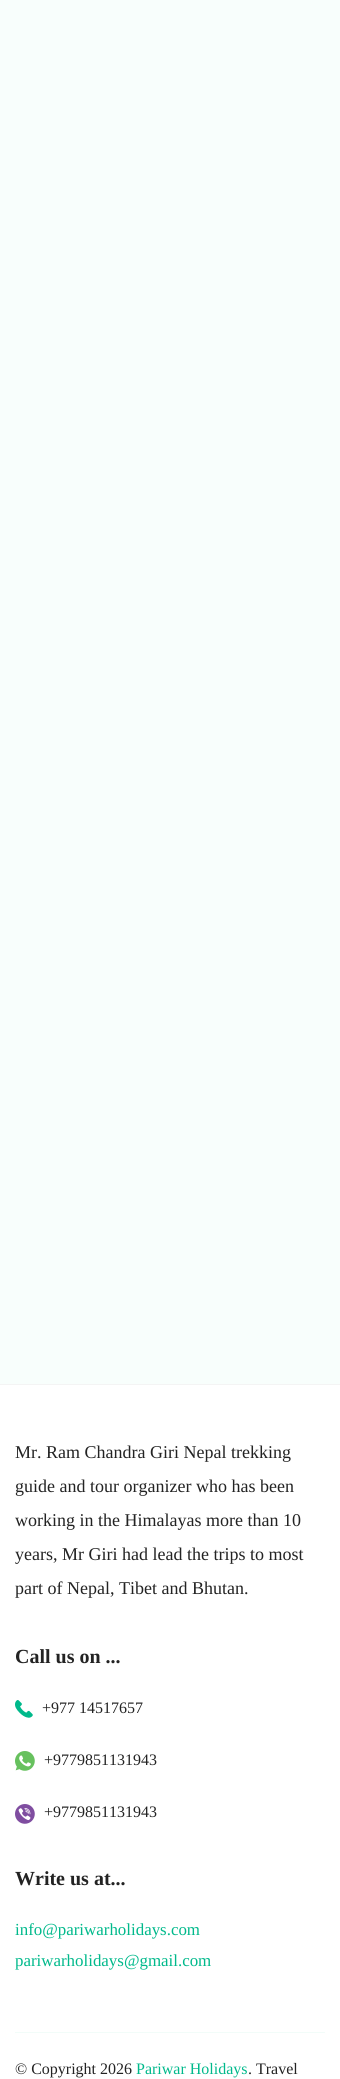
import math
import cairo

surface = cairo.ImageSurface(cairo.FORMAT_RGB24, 340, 2079)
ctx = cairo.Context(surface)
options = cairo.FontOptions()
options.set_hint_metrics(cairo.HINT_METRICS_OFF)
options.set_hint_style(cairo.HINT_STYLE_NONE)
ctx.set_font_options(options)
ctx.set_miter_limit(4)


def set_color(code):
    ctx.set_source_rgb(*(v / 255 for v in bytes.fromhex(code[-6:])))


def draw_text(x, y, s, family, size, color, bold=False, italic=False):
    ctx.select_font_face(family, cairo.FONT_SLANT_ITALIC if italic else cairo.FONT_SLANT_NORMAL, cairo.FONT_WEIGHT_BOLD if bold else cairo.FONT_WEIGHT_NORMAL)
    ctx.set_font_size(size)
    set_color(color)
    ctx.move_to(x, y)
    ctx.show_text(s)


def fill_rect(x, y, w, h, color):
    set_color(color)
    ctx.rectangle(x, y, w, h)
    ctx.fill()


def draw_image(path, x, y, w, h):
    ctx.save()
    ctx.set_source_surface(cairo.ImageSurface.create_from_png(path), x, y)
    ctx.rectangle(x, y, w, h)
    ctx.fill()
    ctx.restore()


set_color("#ffffff")
ctx.paint()
fill_rect(0, 0, 340, 1384, "#f8fefc")
fill_rect(0, 1384, 340, 1, "#f4f4f4")
draw_text(15, 1458, "Mr. Ram Chandra Giri Nepal trekking", "Liberation Serif", 18, "#232323")
draw_text(15, 1492, "guide and tour organizer who has been", "Liberation Serif", 18, "#232323")
draw_text(15, 1526, "working in the Himalayas more than 10", "Liberation Serif", 18, "#232323")
draw_text(15, 1560, "years, Mr Giri had lead the trips to most", "Liberation Serif", 18, "#232323")
draw_text(15, 1594, "part of Nepal, Tibet and Bhutan.", "Liberation Serif", 18, "#232323")
draw_text(15, 1663, "Call us on ...", "Liberation Serif", 20, "#232323", bold=True)
draw_image("assets/img1.png", 15, 1700, 18, 18)
draw_text(42, 1713, "+977 14517657", "Liberation Serif", 16, "#232323")
draw_image("assets/img2.png", 15, 1751, 20, 20)
draw_text(44, 1765, "+9779851131943", "Liberation Serif", 16, "#232323")
draw_image("assets/img3.png", 15, 1804, 20, 20)
draw_text(44, 1817, "+9779851131943", "Liberation Serif", 16, "#232323")
draw_text(15, 1885, "Write us at...", "Liberation Serif", 20, "#232323", bold=True)
draw_text(15, 1935, "info@pariwarholidays.com", "Liberation Serif", 16.9, "#00b98b")
draw_text(15, 1966, "pariwarholidays@gmail.com", "Liberation Serif", 16.9, "#00b98b")
fill_rect(15, 2032, 310, 1, "#f2fcf9")
draw_text(15, 2074, "© Copyright 2026", "Liberation Serif", 16, "#232323")
draw_text(136, 2074, "Pariwar Holidays", "Liberation Serif", 16, "#00b98b")
draw_text(248, 2074, ". Travel", "Liberation Serif", 16, "#232323")
surface.write_to_png("output.png")
